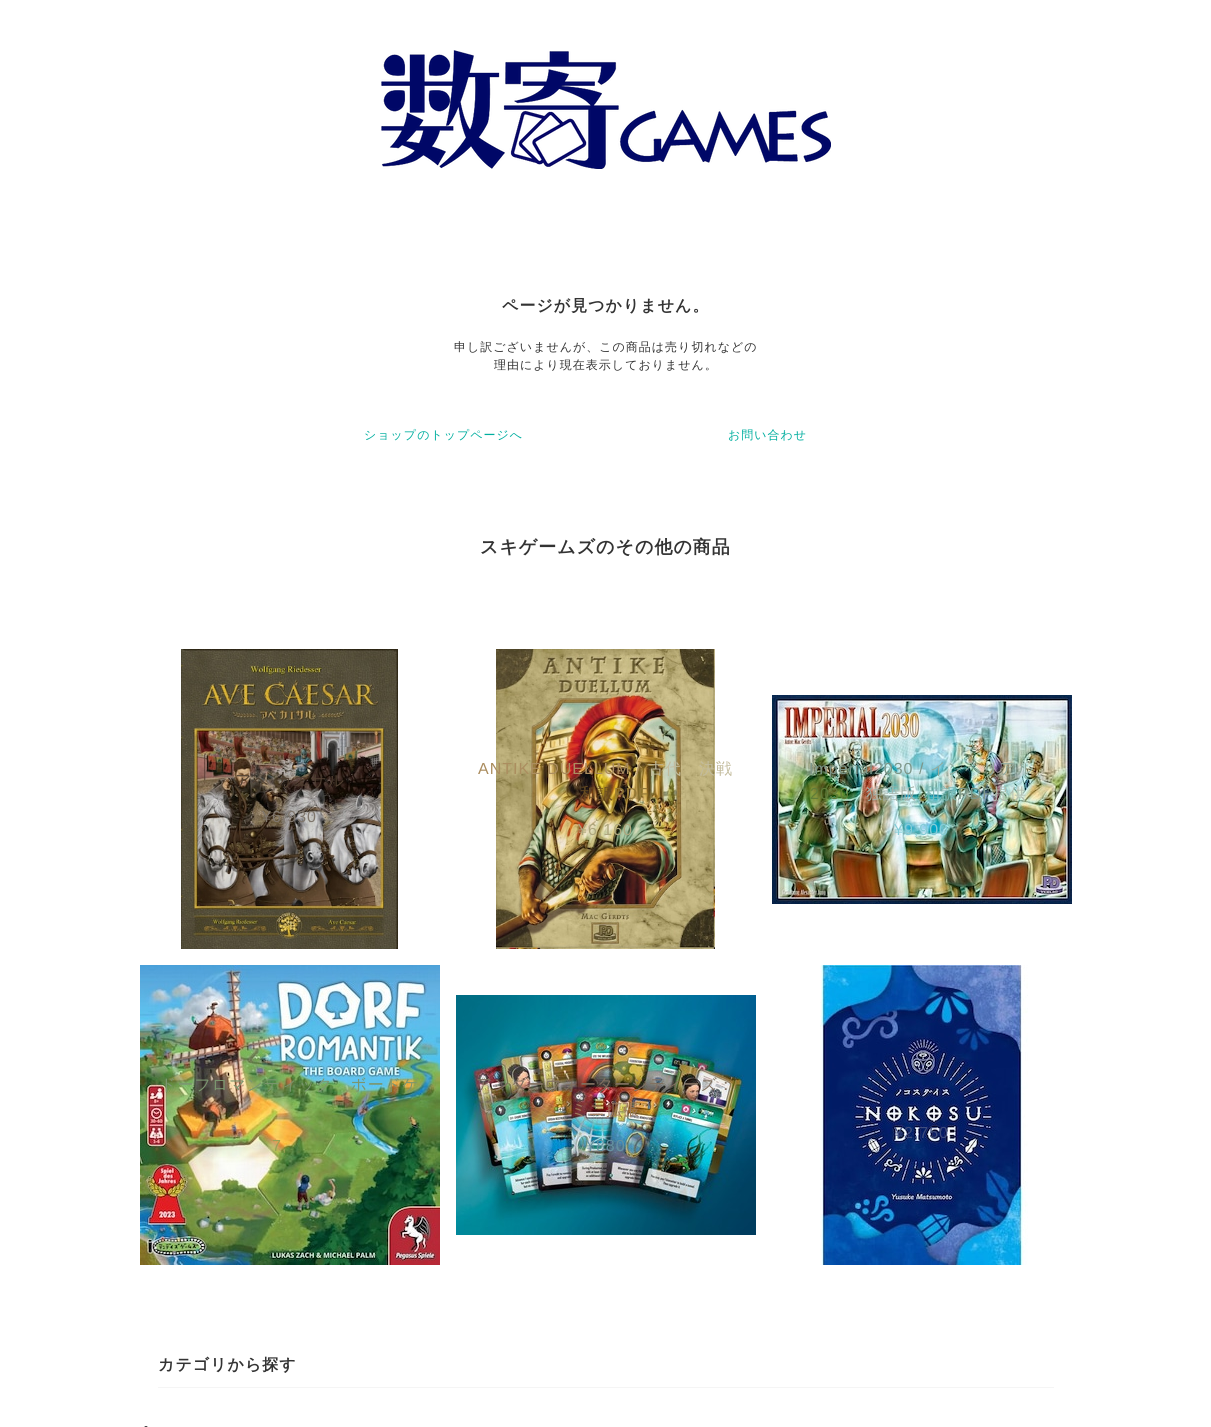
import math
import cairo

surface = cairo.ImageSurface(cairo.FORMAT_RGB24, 1211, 1427)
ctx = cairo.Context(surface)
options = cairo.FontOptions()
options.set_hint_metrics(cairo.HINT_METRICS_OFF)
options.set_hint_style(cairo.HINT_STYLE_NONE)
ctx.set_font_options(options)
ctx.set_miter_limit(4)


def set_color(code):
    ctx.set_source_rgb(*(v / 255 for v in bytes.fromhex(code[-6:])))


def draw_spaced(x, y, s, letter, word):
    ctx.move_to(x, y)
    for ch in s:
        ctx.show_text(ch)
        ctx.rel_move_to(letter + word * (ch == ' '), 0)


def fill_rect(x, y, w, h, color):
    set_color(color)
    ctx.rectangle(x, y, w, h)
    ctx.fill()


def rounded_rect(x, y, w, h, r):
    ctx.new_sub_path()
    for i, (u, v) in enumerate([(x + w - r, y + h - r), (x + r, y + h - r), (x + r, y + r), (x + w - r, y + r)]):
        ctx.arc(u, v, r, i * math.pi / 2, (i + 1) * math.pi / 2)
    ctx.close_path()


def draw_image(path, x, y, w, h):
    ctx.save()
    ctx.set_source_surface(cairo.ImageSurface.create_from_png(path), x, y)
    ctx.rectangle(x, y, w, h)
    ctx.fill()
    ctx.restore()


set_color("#ffffff")
ctx.paint()
draw_image("assets/img1.png", 381, 50, 450, 119)
ctx.select_font_face("WenQuanYi Zen Hei", cairo.FONT_SLANT_NORMAL, cairo.FONT_WEIGHT_BOLD)
ctx.set_font_size(16)
set_color("#333333")
draw_spaced(502, 311, "ページが見つかりません。", 1, 0)
ctx.select_font_face("WenQuanYi Zen Hei Medium")
ctx.set_font_size(12)
draw_spaced(454, 351, "申し訳ございませんが、この商品は売り切れなどの", 1, 0)
draw_spaced(494, 369, "理由により現在表示しておりません。", 1, 0)
set_color("#00ae9f")
draw_spaced(364, 439, "ショップのトップページへ", 1, 0)
draw_spaced(728, 439, "お問い合わせ", 1, 0)
ctx.select_font_face("WenQuanYi Zen Hei", cairo.FONT_SLANT_NORMAL, cairo.FONT_WEIGHT_BOLD)
ctx.set_font_size(18)
set_color("#333333")
draw_spaced(480, 553, "スキゲームズのその他の商品", 1, 0)
draw_image("assets/img2.png", 181, 649, 217, 300)
ctx.select_font_face("WenQuanYi Zen Hei Medium")
ctx.set_font_size(16)
set_color("#4f3f31")
draw_spaced(235, 786, "アベ カエサル", 1, 0)
ctx.select_font_face("Liberation Sans")
set_color("#7f766c")
draw_spaced(262, 822, "¥6,930", 1, 0)
draw_image("assets/img3.png", 496, 649, 219, 300)
set_color("#ab8d5f")
draw_spaced(478, 774, "ANTIKE DUELLUM /", 1, 0)
ctx.select_font_face("WenQuanYi Zen Hei Medium")
set_color("#c3bc9d")
draw_spaced(648, 774, "古代　決戦", 1, 0)
set_color("#694c21")
draw_spaced(580, 799, "和訳", 1, 0)
ctx.select_font_face("Liberation Sans")
set_color("#957936")
draw_spaced(614, 799, "PDF", 1, 0)
set_color("#aea77e")
draw_spaced(578, 835, "¥6,160", 1, 0)
draw_image("assets/img4.png", 772, 695, 300, 209)
set_color("#7d978a")
draw_spaced(809, 774, "Imperial2030 /", 1, 0)
ctx.select_font_face("WenQuanYi Zen Hei Medium")
set_color("#91ac9f")
draw_spaced(930, 774, "インペリアル", 1, 0)
ctx.select_font_face("Liberation Sans")
set_color("#5f7d39")
draw_spaced(810, 799, "2030", 1, 0)
ctx.select_font_face("WenQuanYi Zen Hei Medium")
set_color("#a1b0a6")
draw_spaced(866, 799, "独語版", 1, 0)
set_color("#7fbab6")
draw_spaced(924, 799, "和訳", 1, 0)
ctx.select_font_face("Liberation Sans")
set_color("#7d978a")
draw_spaced(958, 799, "PDF", 1, 0)
ctx.select_font_face("WenQuanYi Zen Hei Medium")
set_color("#b0bdaf")
draw_spaced(993, 799, "提供", 1, 0)
ctx.select_font_face("Liberation Sans")
set_color("#85ccd7")
draw_spaced(894, 835, "¥9,900", 1, 0)
draw_image("assets/img5.png", 140, 965, 300, 300)
ctx.select_font_face("WenQuanYi Zen Hei Medium")
set_color("#7b966f")
draw_spaced(160, 1090, "ドーフロマンティック　ボードゲ", 1, 0)
ctx.select_font_face("Liberation Sans")
set_color("#98a255")
draw_spaced(272, 1151, "7,", 1, 0)
draw_image("assets/img6.png", 456, 995, 300, 240)
ctx.select_font_face("WenQuanYi Zen Hei Medium")
set_color("#827161")
draw_spaced(476, 1090, "アンダーウォーターシティーズ：", 1, 0)
set_color("#9e7a5e")
draw_spaced(571, 1115, "ミニ拡張", 1, 0)
ctx.select_font_face("Liberation Sans")
set_color("#6692a1")
draw_spaced(586, 1151, "¥880", 1, 0)
draw_image("assets/img7.png", 820, 965, 208, 300)
set_color("#3e4c7d")
draw_spaced(894, 1138, "¥2,750", 1, 0)
fill_rect(158, 1387, 896, 1, "#f5f5f5")
ctx.select_font_face("WenQuanYi Zen Hei", cairo.FONT_SLANT_NORMAL, cairo.FONT_WEIGHT_BOLD)
set_color("#333333")
draw_spaced(158, 1370, "カテゴリから探す", 1, 0)
rounded_rect(144, 1426, 4, 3, 2)
ctx.fill()
surface.write_to_png("output.png")
